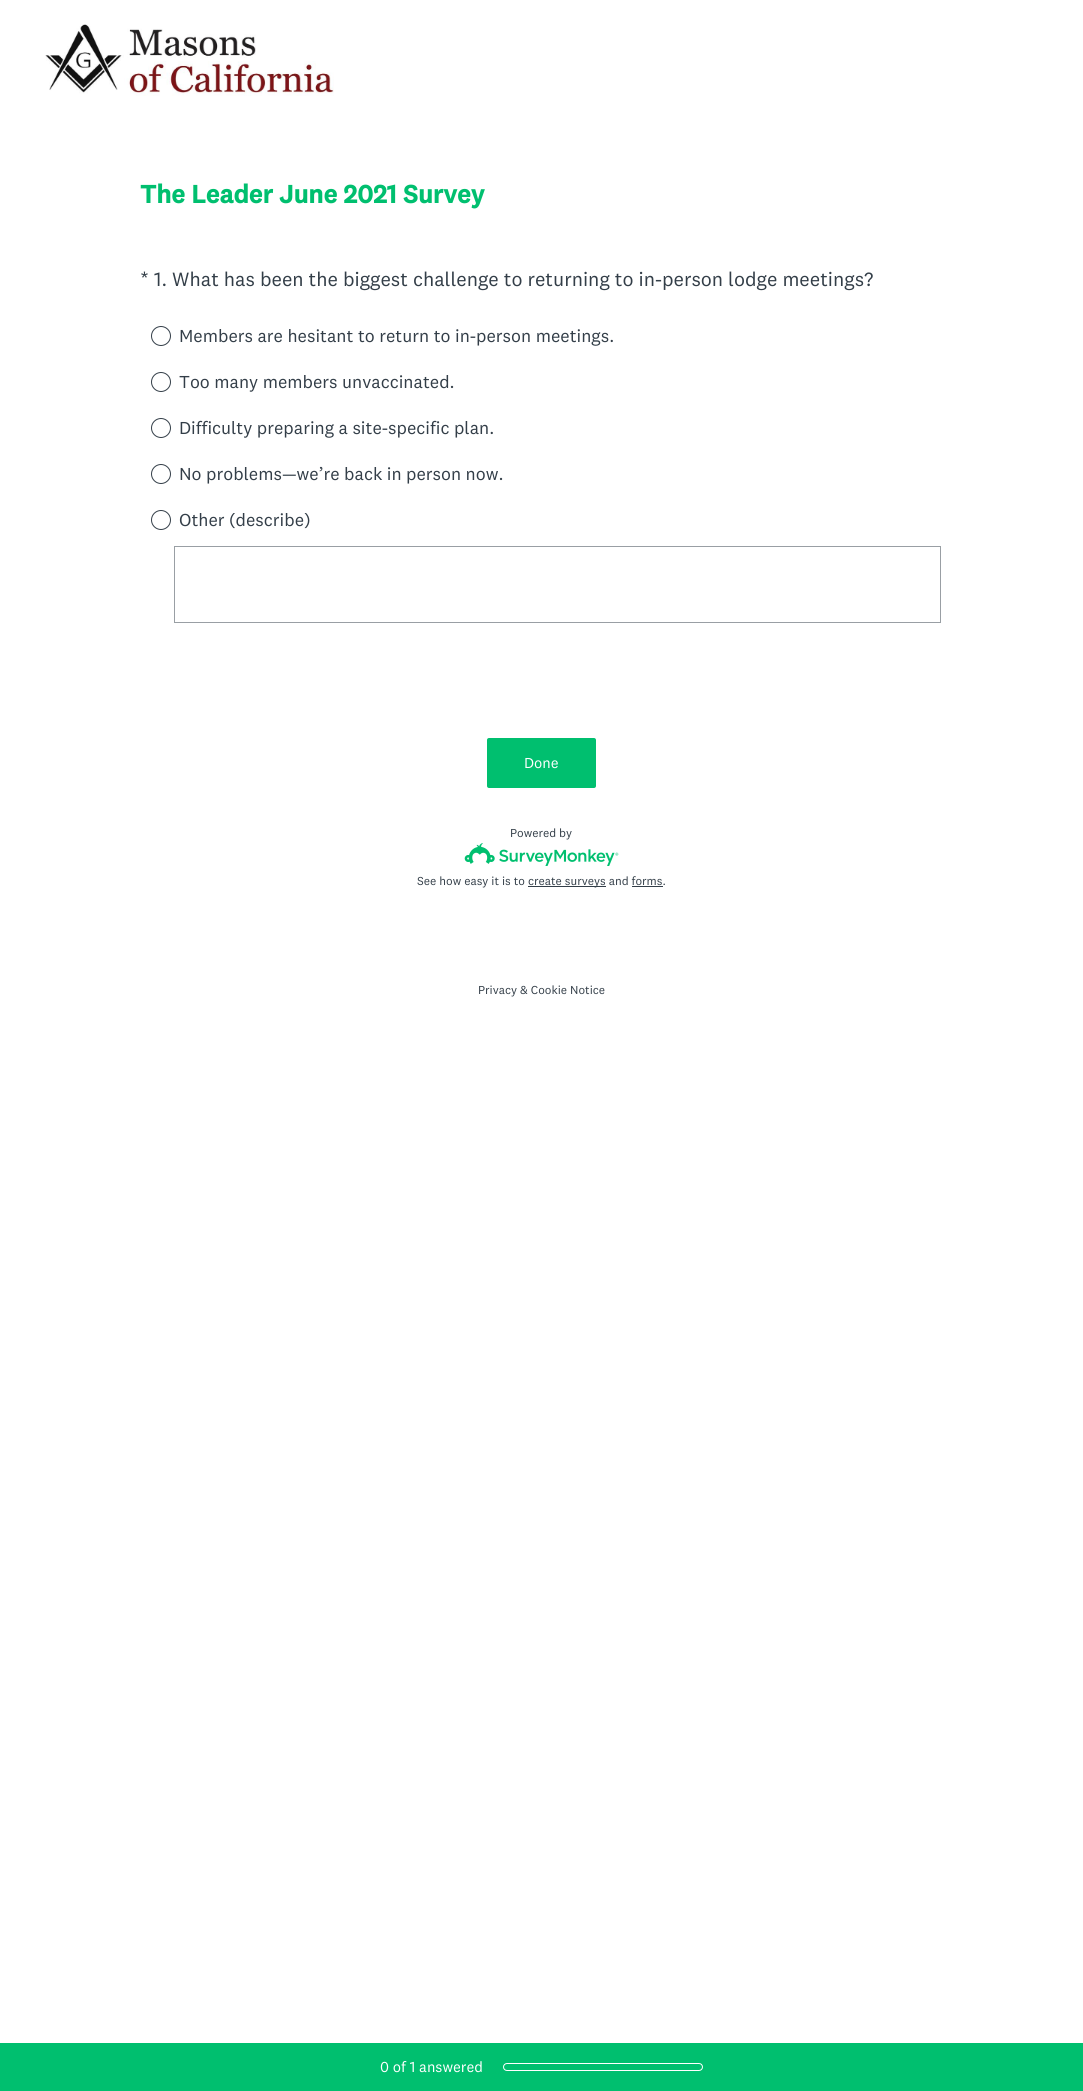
import math
import cairo

surface = cairo.ImageSurface(cairo.FORMAT_RGB24, 1083, 2091)
ctx = cairo.Context(surface)
options = cairo.FontOptions()
options.set_hint_metrics(cairo.HINT_METRICS_OFF)
options.set_hint_style(cairo.HINT_STYLE_NONE)
ctx.set_font_options(options)
ctx.set_miter_limit(4)


def set_color(code):
    ctx.set_source_rgb(*(v / 255 for v in bytes.fromhex(code[-6:])))


def draw_text(x, y, s, family, size, color, bold=False, italic=False):
    ctx.select_font_face(family, cairo.FONT_SLANT_ITALIC if italic else cairo.FONT_SLANT_NORMAL, cairo.FONT_WEIGHT_BOLD if bold else cairo.FONT_WEIGHT_NORMAL)
    ctx.set_font_size(size)
    set_color(color)
    ctx.move_to(x, y)
    ctx.show_text(s)


def fill_rect(x, y, w, h, color):
    set_color(color)
    ctx.rectangle(x, y, w, h)
    ctx.fill()


def rounded_rect(x, y, w, h, r):
    ctx.new_sub_path()
    for i, (u, v) in enumerate([(x + w - r, y + h - r), (x + r, y + h - r), (x + r, y + r), (x + w - r, y + r)]):
        ctx.arc(u, v, r, i * math.pi / 2, (i + 1) * math.pi / 2)
    ctx.close_path()


def draw_image(path, x, y, w, h):
    ctx.save()
    ctx.set_source_surface(cairo.ImageSurface.create_from_png(path), x, y)
    ctx.rectangle(x, y, w, h)
    ctx.fill()
    ctx.restore()


set_color("#ffffff")
ctx.paint()
draw_image("assets/img1.png", 45, 24, 289, 72)
draw_text(140, 203, "The Leader June 2021 Survey", "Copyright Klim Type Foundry", 26, "#00bf6f", bold=True)
draw_text(140, 286, "* 1. What has been the biggest challenge to returning to in-person lodge meetings?", "Copyright Klim Type Foundry", 20, "#333e48")
ctx.new_path()
ctx.arc(161, 336, 9.5, 0, 2 * math.pi)
ctx.set_line_width(1)
ctx.stroke()
draw_text(179, 342, "Members are hesitant to return to in-person meetings.", "Copyright Klim Type Foundry", 18, "#333e48")
ctx.new_path()
ctx.arc(161, 382, 9.5, 0, 2 * math.pi)
ctx.stroke()
draw_text(179, 388, "Too many members unvaccinated.", "Copyright Klim Type Foundry", 18, "#333e48")
ctx.new_path()
ctx.arc(161, 428, 9.5, 0, 2 * math.pi)
ctx.stroke()
draw_text(179, 434, "Difficulty preparing a site-specific plan.", "Copyright Klim Type Foundry", 18, "#333e48")
ctx.new_path()
ctx.arc(161, 474, 9.5, 0, 2 * math.pi)
ctx.stroke()
draw_text(179, 480, "No problems—we’re back in person now.", "Copyright Klim Type Foundry", 18, "#333e48")
ctx.new_path()
ctx.arc(161, 520, 9.5, 0, 2 * math.pi)
ctx.stroke()
draw_text(179, 526, "Other (describe)", "Copyright Klim Type Foundry", 18, "#333e48")
ctx.rectangle(174.5, 546.5, 766, 76)
set_color("#999fa4")
ctx.stroke()
fill_rect(0, 2043, 1083, 48, "#00bf6f")
draw_text(380, 2072, "0 of 1 answered", "Copyright Klim Type Foundry", 15, "#ffffff")
rounded_rect(503.5, 2063.5, 199, 7, 3.5)
ctx.stroke()
set_color("#00bf6f")
rounded_rect(487, 738, 109, 50, 2)
ctx.fill()
draw_text(524, 768, "Done", "Copyright Klim Type Foundry", 15, "#ffffff")
draw_text(510, 837, "Powered by", "Copyright Klim Type Foundry", 12, "#333e48")
draw_image("assets/img2.png", 464, 843, 155, 23)
draw_text(417, 885, "See how easy it is to", "Copyright Klim Type Foundry", 12, "#333e48")
fill_rect(528, 886, 78, 1, "#333e48")
draw_text(528, 885, "create surveys and forms.", "Copyright Klim Type Foundry", 12, "#333e48")
fill_rect(632, 886, 31, 1, "#333e48")
draw_text(478, 994, "Privacy & Cookie Notice", "Copyright Klim Type Foundry", 12, "#333e48")
surface.write_to_png("output.png")
